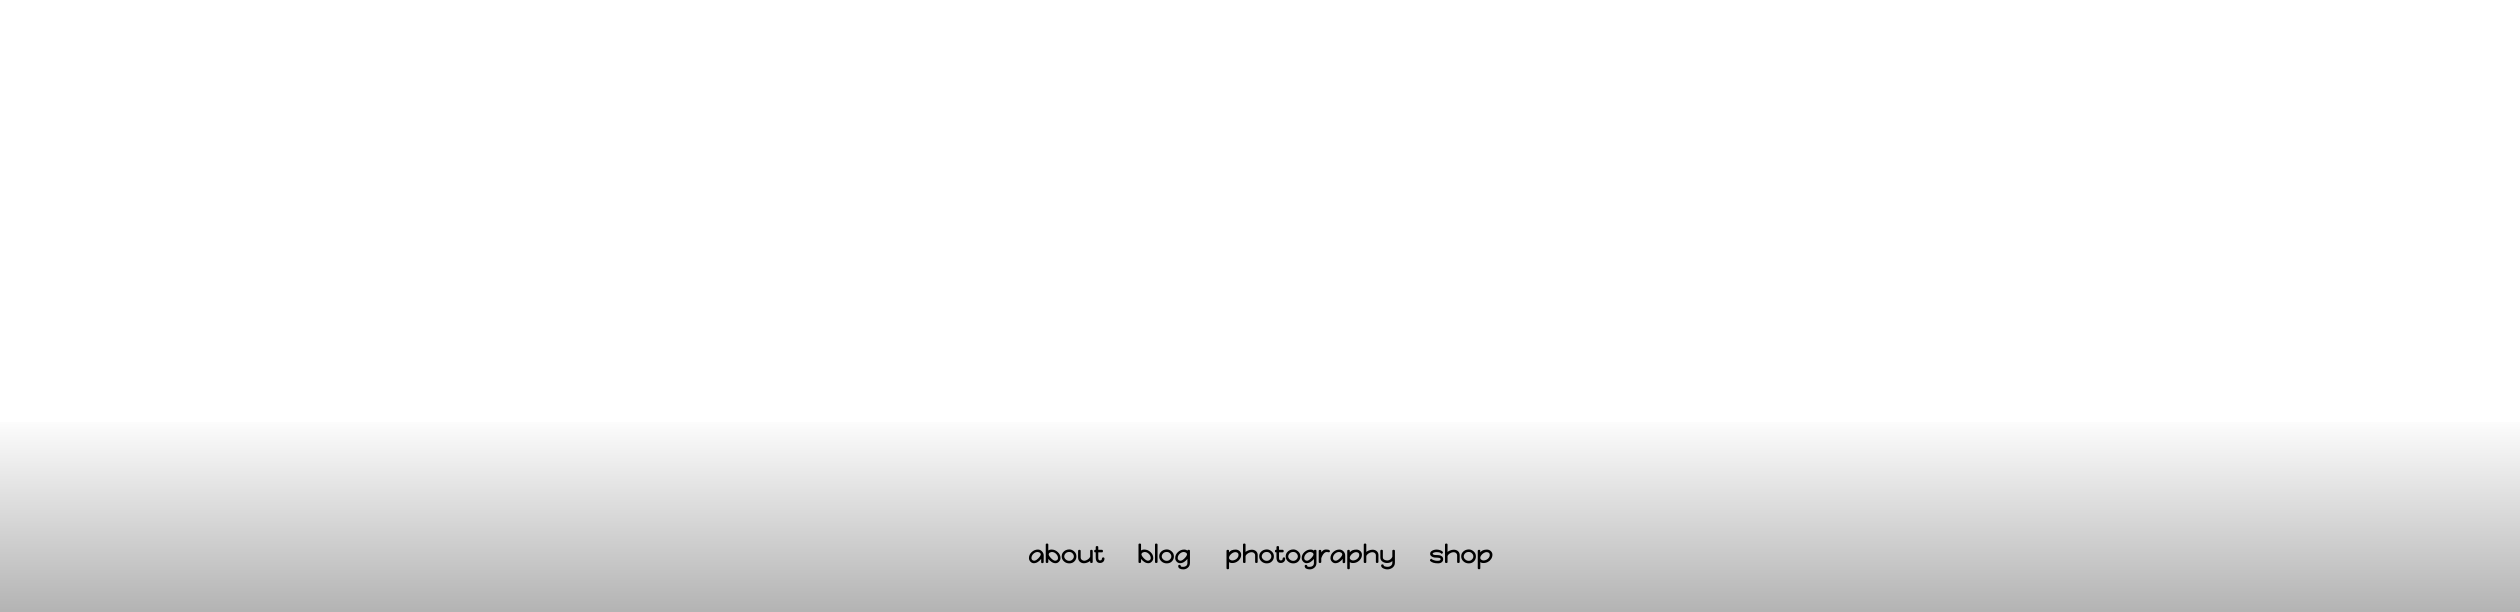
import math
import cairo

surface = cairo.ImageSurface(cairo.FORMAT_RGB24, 2520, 612)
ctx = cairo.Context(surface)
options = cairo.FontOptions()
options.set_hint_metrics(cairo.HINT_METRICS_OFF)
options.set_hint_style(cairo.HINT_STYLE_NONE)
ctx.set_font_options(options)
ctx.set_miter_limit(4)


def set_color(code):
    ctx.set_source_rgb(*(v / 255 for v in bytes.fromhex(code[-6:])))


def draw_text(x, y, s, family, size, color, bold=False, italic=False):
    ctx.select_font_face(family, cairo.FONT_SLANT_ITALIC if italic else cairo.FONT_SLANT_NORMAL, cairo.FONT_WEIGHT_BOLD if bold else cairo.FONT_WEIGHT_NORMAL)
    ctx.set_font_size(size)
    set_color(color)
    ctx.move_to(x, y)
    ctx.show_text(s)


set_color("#ffffff")
ctx.paint()
gradient = cairo.LinearGradient(1260, 415, 1260, 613)
gradient.add_color_stop_rgba(0, 1, 1, 1, 1)
gradient.add_color_stop_rgba(1, 0.702, 0.702, 0.702, 1)
ctx.set_source(gradient)
ctx.rectangle(0, 422, 2520, 190)
ctx.fill()
draw_text(1028, 563, "about", "Happy Monkey", 25, "#000000", bold=True)
draw_text(1137, 563, "blog", "Happy Monkey", 25, "#000000", bold=True)
draw_text(1225, 563, "photography", "Happy Monkey", 25, "#000000", bold=True)
draw_text(1429, 563, "shop", "Happy Monkey", 25, "#000000", bold=True)
surface.write_to_png("output.png")
